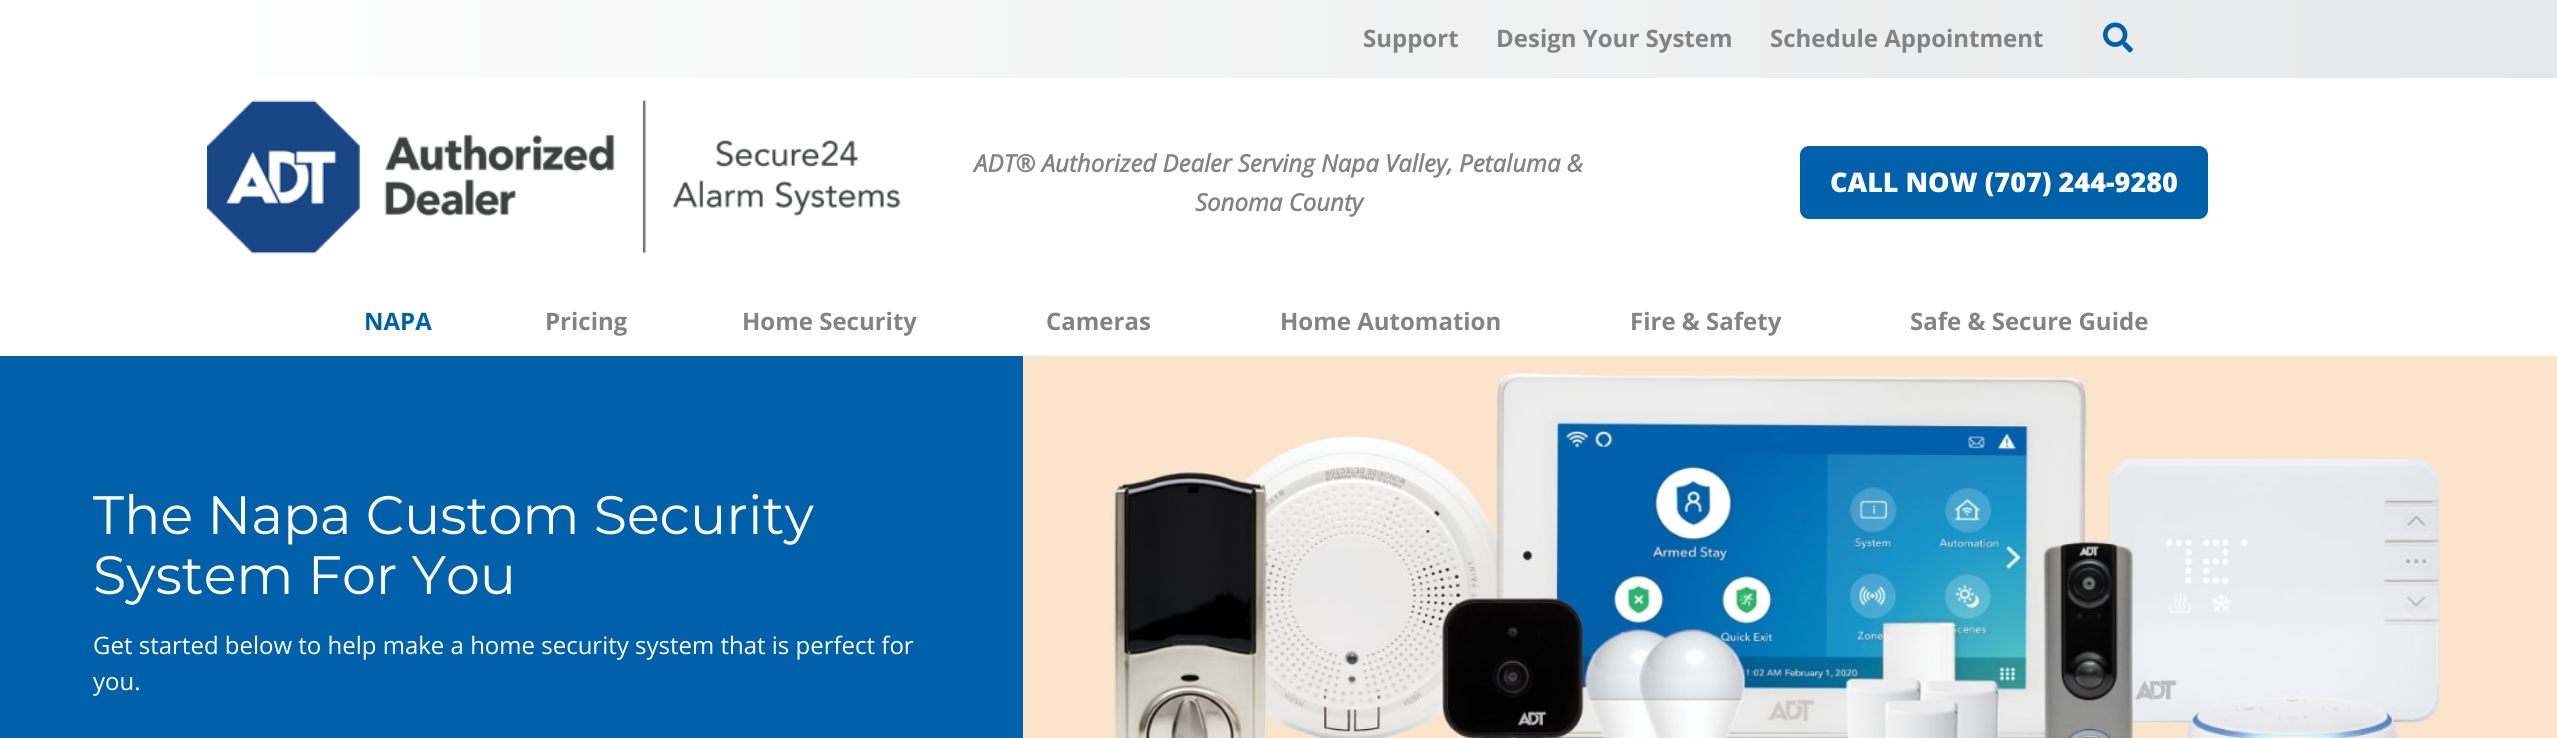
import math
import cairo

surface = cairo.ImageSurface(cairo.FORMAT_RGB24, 2557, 738)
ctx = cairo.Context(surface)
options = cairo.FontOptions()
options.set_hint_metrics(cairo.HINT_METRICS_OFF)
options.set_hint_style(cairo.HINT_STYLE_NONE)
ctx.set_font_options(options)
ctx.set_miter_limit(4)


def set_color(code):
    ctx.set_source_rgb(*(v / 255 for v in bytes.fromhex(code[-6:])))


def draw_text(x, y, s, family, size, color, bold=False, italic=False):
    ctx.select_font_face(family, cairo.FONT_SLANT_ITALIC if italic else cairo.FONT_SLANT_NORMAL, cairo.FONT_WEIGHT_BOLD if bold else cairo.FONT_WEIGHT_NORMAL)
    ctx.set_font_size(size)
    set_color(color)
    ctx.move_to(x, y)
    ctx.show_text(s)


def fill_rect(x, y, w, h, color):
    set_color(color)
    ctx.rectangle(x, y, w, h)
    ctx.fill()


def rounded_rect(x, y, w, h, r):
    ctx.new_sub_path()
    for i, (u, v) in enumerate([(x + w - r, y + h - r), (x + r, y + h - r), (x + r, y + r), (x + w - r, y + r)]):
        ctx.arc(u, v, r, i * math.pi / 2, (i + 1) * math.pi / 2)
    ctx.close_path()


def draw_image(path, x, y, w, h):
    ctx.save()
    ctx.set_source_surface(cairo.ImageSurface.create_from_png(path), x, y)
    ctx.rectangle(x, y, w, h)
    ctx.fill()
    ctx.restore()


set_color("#ffffff")
ctx.paint()
gradient = cairo.LinearGradient(0, 39, 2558, 39)
gradient.add_color_stop_rgba(0, 1, 1, 1, 1)
gradient.add_color_stop_rgba(1, 0.902, 0.906, 0.91, 1)
ctx.set_source(gradient)
ctx.rectangle(256, 0, 2301, 78)
ctx.fill()
draw_text(1363, 47, "Support", "Open Sans", 24, "#838383", bold=True)
draw_text(1496, 47, "Design Your System", "Open Sans", 24, "#838383", bold=True)
draw_text(1770, 47, "Schedule Appointment", "Open Sans", 24, "#838383", bold=True)
draw_image("assets/img1.png", 2103, 22, 30, 31)
draw_image("assets/img2.png", 207, 100, 694, 154)
draw_text(974, 172, "ADT® Authorized Dealer Serving Napa Valley, Petaluma &", "Open Sans", 24, "#838383", bold=True, italic=True)
draw_text(1195, 211, "Sonoma County", "Open Sans", 24, "#838383", bold=True, italic=True)
set_color("#0061aa")
rounded_rect(1800, 146, 408, 73, 9)
ctx.fill()
draw_text(1830, 192, "CALL NOW (707) 244-9280", "Open Sans ExtraBold", 27, "#ffffff")
draw_text(364, 330, "NAPA", "Open Sans", 24, "#0061aa", bold=True)
draw_text(545, 330, "Pricing", "Open Sans", 24, "#838383", bold=True)
draw_text(742, 330, "Home Security", "Open Sans", 24, "#838383", bold=True)
draw_text(1046, 330, "Cameras", "Open Sans", 24, "#838383", bold=True)
draw_text(1280, 330, "Home Automation", "Open Sans", 24, "#838383", bold=True)
draw_text(1630, 330, "Fire & Safety", "Open Sans", 24, "#838383", bold=True)
draw_text(1910, 330, "Safe & Secure Guide", "Open Sans", 24, "#838383", bold=True)
fill_rect(0, 356, 1023, 382, "#0061aa")
draw_text(93, 534, "The Napa Custom Security", "Montserrat", 54, "#ffffff")
draw_text(93, 594, "System For You", "Montserrat", 54, "#ffffff")
draw_text(93, 654, "Get started below to help make a home security system that is perfect for", "Open Sans", 24, "#ffffff")
draw_text(93, 690, "you.", "Open Sans", 24, "#ffffff")
draw_image("assets/img3.png", 1023, 355, 1534, 383)
surface.write_to_png("output.png")
